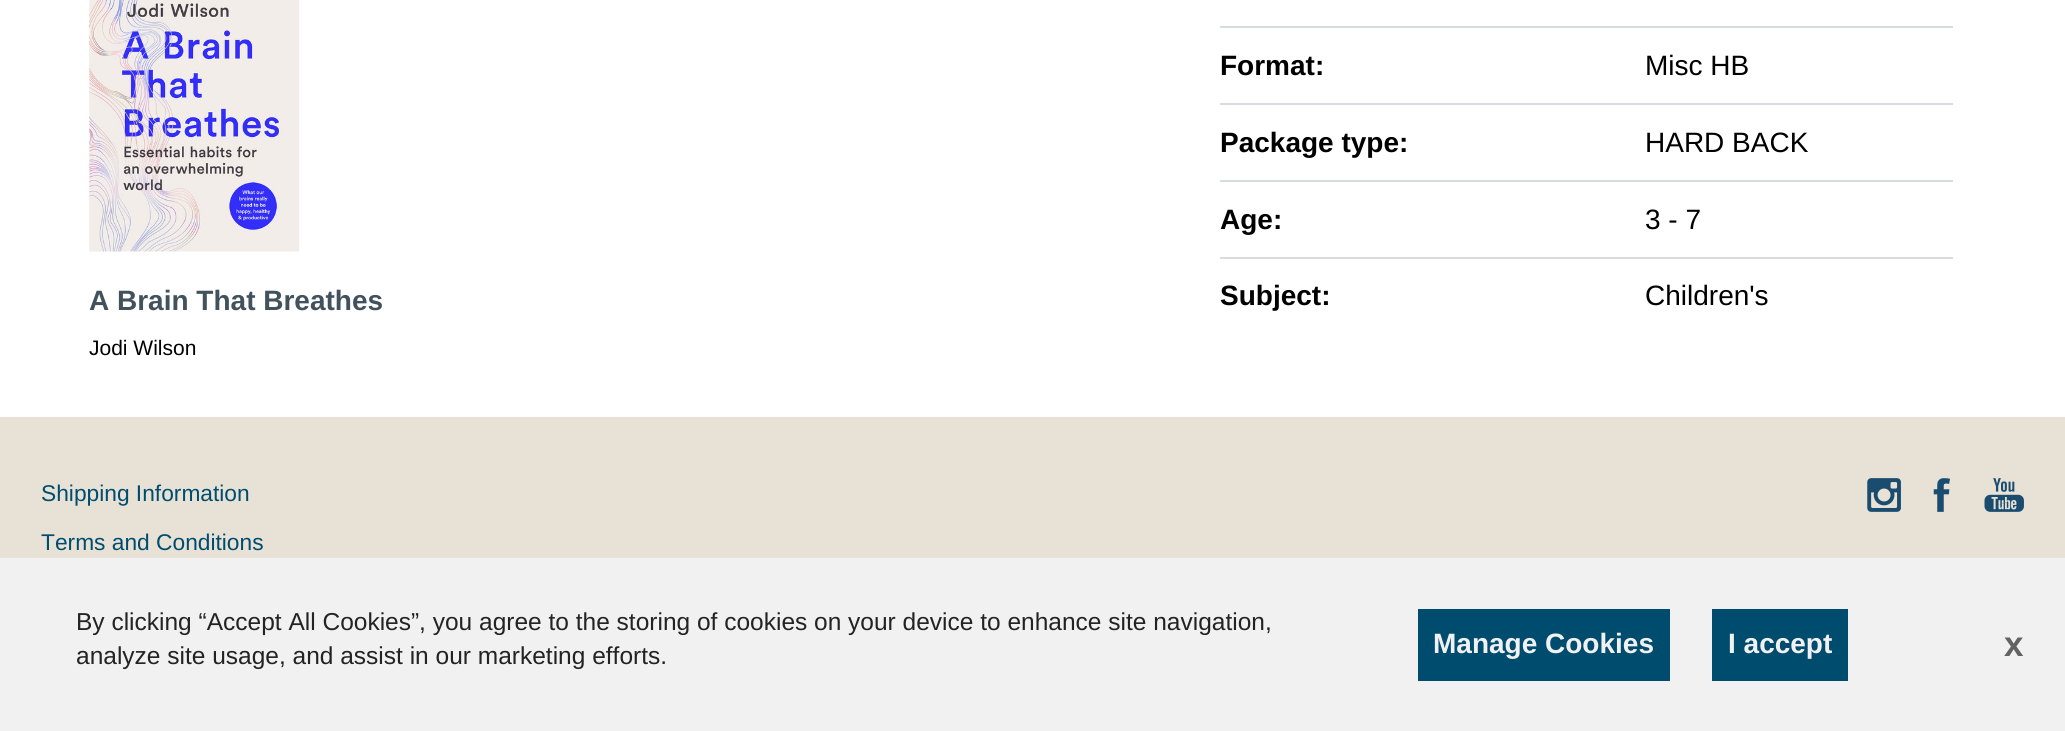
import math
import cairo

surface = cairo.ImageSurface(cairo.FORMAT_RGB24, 2065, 731)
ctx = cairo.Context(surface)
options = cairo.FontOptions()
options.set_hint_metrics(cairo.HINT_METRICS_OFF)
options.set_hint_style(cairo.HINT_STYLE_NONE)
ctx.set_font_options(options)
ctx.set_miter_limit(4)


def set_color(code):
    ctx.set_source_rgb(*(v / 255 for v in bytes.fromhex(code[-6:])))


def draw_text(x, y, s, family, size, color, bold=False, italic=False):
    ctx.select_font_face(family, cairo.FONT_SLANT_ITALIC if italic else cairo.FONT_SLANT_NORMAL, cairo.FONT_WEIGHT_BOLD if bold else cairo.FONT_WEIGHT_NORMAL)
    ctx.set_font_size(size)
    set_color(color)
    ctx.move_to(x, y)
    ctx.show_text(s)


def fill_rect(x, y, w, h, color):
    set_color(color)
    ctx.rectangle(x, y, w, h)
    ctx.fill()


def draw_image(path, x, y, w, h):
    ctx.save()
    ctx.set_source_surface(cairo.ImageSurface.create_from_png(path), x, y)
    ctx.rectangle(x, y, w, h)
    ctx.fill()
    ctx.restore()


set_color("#e8e2d6")
ctx.paint()
fill_rect(0, 0, 2065, 417, "#ffffff")
fill_rect(1220, 26, 733, 2, "#d9dcde")
draw_text(1220, 75, "Format:", "Liberation Sans", 28, "#000000", bold=True)
draw_text(1645, 75, "Misc HB", "Liberation Sans", 28, "#000000")
fill_rect(1220, 103, 733, 2, "#d9dcde")
draw_text(1220, 152, "Package type:", "Liberation Sans", 28, "#000000", bold=True)
draw_text(1645, 152, "HARD BACK", "Liberation Sans", 28, "#000000")
fill_rect(1220, 180, 733, 2, "#d9dcde")
draw_text(1220, 229, "Age:", "Liberation Sans", 28, "#000000", bold=True)
draw_text(1645, 229, "3 - 7", "Liberation Sans", 28, "#000000")
fill_rect(1220, 257, 733, 2, "#d9dcde")
draw_text(1220, 305, "Subject:", "Liberation Sans", 28, "#000000", bold=True)
draw_text(1645, 305, "Children's", "Liberation Sans", 28, "#000000")
draw_image("assets/img1.png", 89, 0, 211, 252)
draw_text(89, 310, "A Brain That Breathes", "Liberation Sans", 28, "#41525c", bold=True)
draw_text(89, 355, "Jodi Wilson", "Liberation Sans", 21, "#000000")
draw_image("assets/img2.png", 1867, 478, 34, 34)
draw_image("assets/img3.png", 1933, 478, 17, 34)
draw_image("assets/img4.png", 1984, 478, 40, 34)
draw_text(41, 501, "Shipping Information", "Liberation Sans", 22.75, "#004c6f")
draw_text(41, 550, "Terms and Conditions", "Liberation Sans", 22.75, "#004c6f")
fill_rect(0, 558, 2065, 173, "#f1f1f1")
draw_text(76, 630, "By clicking “Accept All Cookies”, you agree to the storing of cookies on your device to enhance site navigation,", "Liberation Sans", 24.5, "#232323")
draw_text(76, 664, "analyze site usage, and assist in our marketing efforts.", "Liberation Sans", 24.5, "#232323")
fill_rect(1418, 609, 252, 72, "#004c6f")
draw_text(1433, 653, "Manage Cookies", "Liberation Sans", 28, "#f1f1f1", bold=True)
fill_rect(1712, 609, 136, 72, "#004c6f")
draw_text(1728, 653, "I accept", "Liberation Sans", 28, "#f1f1f1", bold=True)
draw_text(2004, 656, "x", "Liberation Sans", 35, "#636363", bold=True)
surface.write_to_png("output.png")
